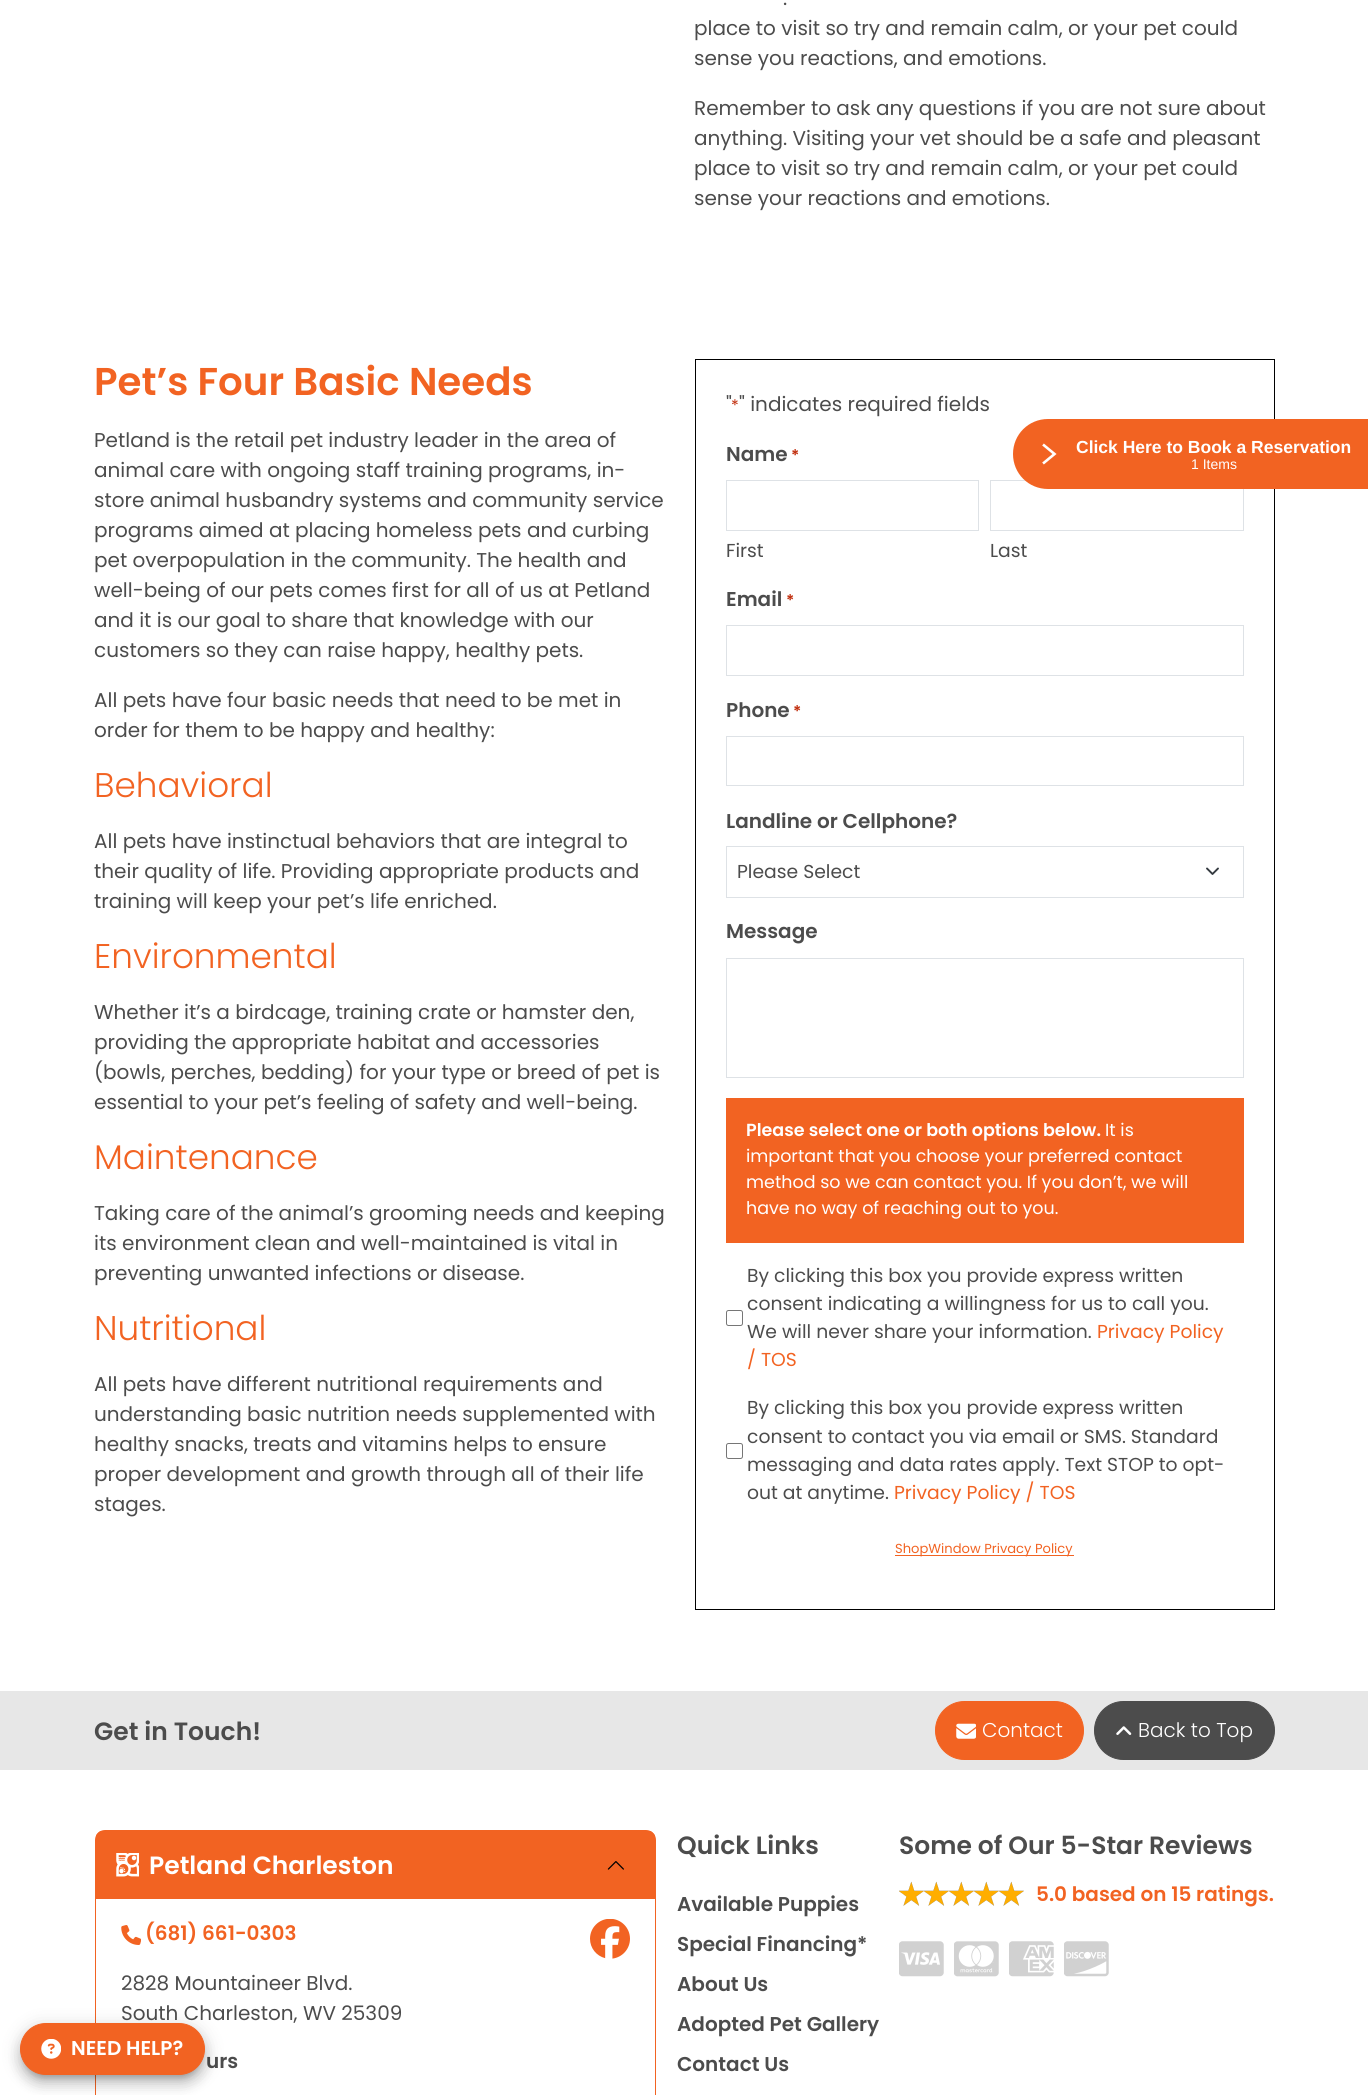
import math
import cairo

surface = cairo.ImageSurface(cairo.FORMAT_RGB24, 1368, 2095)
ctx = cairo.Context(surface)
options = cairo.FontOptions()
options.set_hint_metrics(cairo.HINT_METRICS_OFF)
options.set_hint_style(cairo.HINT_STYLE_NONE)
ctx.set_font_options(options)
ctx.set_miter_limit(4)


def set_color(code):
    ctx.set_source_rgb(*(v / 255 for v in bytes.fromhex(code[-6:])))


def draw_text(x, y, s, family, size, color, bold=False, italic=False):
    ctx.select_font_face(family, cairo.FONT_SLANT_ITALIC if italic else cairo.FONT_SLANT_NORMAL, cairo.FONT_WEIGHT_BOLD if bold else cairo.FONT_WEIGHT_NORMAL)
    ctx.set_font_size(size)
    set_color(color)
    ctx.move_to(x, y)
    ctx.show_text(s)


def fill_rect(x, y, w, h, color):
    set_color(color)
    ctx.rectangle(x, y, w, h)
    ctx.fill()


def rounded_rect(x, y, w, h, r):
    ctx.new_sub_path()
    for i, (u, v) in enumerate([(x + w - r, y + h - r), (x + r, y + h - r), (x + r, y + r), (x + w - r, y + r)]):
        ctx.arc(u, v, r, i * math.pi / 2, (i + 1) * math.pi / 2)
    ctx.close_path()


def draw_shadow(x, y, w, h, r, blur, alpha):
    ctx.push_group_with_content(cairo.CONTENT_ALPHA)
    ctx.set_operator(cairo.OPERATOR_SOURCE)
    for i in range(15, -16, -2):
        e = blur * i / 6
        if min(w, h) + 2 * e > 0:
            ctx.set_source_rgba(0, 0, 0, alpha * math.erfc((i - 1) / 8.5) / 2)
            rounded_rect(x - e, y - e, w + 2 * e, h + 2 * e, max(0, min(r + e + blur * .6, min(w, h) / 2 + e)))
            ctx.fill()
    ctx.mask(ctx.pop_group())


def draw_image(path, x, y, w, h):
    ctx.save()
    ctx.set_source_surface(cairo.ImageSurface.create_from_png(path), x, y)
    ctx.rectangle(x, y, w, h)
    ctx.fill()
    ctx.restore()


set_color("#ffffff")
ctx.paint()
draw_text(783, 5, ".", "Poppins", 20, "#4c4c4c")
draw_text(694, 35, "place to visit so try and remain calm, or your pet could", "Poppins", 20, "#4c4c4c")
draw_text(694, 65, "sense you reactions, and emotions.", "Poppins", 20, "#4c4c4c")
draw_text(694, 115, "Remember to ask any questions if you are not sure about", "Poppins", 20, "#4c4c4c")
draw_text(694, 145, "anything. Visiting your vet should be a safe and pleasant", "Poppins", 20, "#4c4c4c")
draw_text(694, 175, "place to visit so try and remain calm, or your pet could", "Poppins", 20, "#4c4c4c")
draw_text(694, 205, "sense your reactions and emotions.", "Poppins", 20, "#4c4c4c")
draw_text(94, 395, "Pet’s Four Basic Needs", "Poppins SemiBold", 38.75, "#f26322")
draw_text(94, 447, "Petland is the retail pet industry leader in the area of", "Poppins", 20, "#4c4c4c")
draw_text(94, 477, "animal care with ongoing staff training programs, in-", "Poppins", 20, "#4c4c4c")
draw_text(94, 507, "store animal husbandry systems and community service", "Poppins", 20, "#4c4c4c")
draw_text(94, 537, "programs aimed at placing homeless pets and curbing", "Poppins", 20, "#4c4c4c")
draw_text(94, 567, "pet overpopulation in the community. The health and", "Poppins", 20, "#4c4c4c")
draw_text(94, 597, "well-being of our pets comes first for all of us at Petland", "Poppins", 20, "#4c4c4c")
draw_text(94, 627, "and it is our goal to share that knowledge with our", "Poppins", 20, "#4c4c4c")
draw_text(94, 657, "customers so they can raise happy, healthy pets.", "Poppins", 20, "#4c4c4c")
draw_text(94, 707, "All pets have four basic needs that need to be met in", "Poppins", 20, "#4c4c4c")
draw_text(94, 737, "order for them to be happy and healthy:", "Poppins", 20, "#4c4c4c")
draw_text(94, 797, "Behavioral", "Poppins Light", 34.25, "#f26322")
draw_text(94, 848, "All pets have instinctual behaviors that are integral to", "Poppins", 20, "#4c4c4c")
draw_text(94, 878, "their quality of life. Providing appropriate products and", "Poppins", 20, "#4c4c4c")
draw_text(94, 908, "training will keep your pet’s life enriched.", "Poppins", 20, "#4c4c4c")
draw_text(94, 968, "Environmental", "Poppins Light", 34.25, "#f26322")
draw_text(94, 1019, "Whether it’s a birdcage, training crate or hamster den,", "Poppins", 20, "#4c4c4c")
draw_text(94, 1049, "providing the appropriate habitat and accessories", "Poppins", 20, "#4c4c4c")
draw_text(94, 1079, "(bowls, perches, bedding) for your type or breed of pet is", "Poppins", 20, "#4c4c4c")
draw_text(94, 1109, "essential to your pet’s feeling of safety and well-being.", "Poppins", 20, "#4c4c4c")
draw_text(94, 1169, "Maintenance", "Poppins Light", 34.25, "#f26322")
draw_text(94, 1220, "Taking care of the animal’s grooming needs and keeping", "Poppins", 20, "#4c4c4c")
draw_text(94, 1250, "its environment clean and well-maintained is vital in", "Poppins", 20, "#4c4c4c")
draw_text(94, 1280, "preventing unwanted infections or disease.", "Poppins", 20, "#4c4c4c")
draw_text(94, 1340, "Nutritional", "Poppins Light", 34.25, "#f26322")
draw_text(94, 1391, "All pets have different nutritional requirements and", "Poppins", 20, "#4c4c4c")
draw_text(94, 1421, "understanding basic nutrition needs supplemented with", "Poppins", 20, "#4c4c4c")
draw_text(94, 1451, "healthy snacks, treats and vitamins helps to ensure", "Poppins", 20, "#4c4c4c")
draw_text(94, 1481, "proper development and growth through all of their life", "Poppins", 20, "#4c4c4c")
draw_text(94, 1511, "stages.", "Poppins", 20, "#4c4c4c")
ctx.rectangle(695.5, 359.5, 579, 1250)
set_color("#000000")
ctx.set_line_width(1)
ctx.stroke()
draw_text(726, 411, "\"", "Poppins", 20, "#4c4c4c")
draw_text(731, 411, "*", "Poppins", 16, "#c02b0a")
draw_text(739, 411, "\" indicates required fields", "Poppins", 20, "#4c4c4c")
draw_text(726, 461, "Name", "Poppins SemiBold", 20, "#4c4c4c")
draw_text(791, 461, "*", "Poppins SemiBold", 16, "#c02b0a")
ctx.rectangle(726.5, 480.5, 252, 50)
set_color("#dee2e6")
ctx.stroke()
draw_text(726, 557, "First", "Poppins", 18.75, "#4c4c4c")
ctx.rectangle(990.5, 480.5, 253, 50)
set_color("#dee2e6")
ctx.stroke()
draw_text(990, 557, "Last", "Poppins", 18.75, "#4c4c4c")
draw_text(726, 606, "Email", "Poppins SemiBold", 20, "#4c4c4c")
draw_text(786, 606, "*", "Poppins SemiBold", 16, "#c02b0a")
ctx.rectangle(726.5, 625.5, 517, 50)
set_color("#dee2e6")
ctx.stroke()
draw_text(726, 717, "Phone", "Poppins SemiBold", 20, "#4c4c4c")
draw_text(793, 717, "*", "Poppins SemiBold", 16, "#c02b0a")
ctx.rectangle(726.5, 736.5, 517, 49)
set_color("#dee2e6")
ctx.stroke()
draw_text(726, 828, "Landline or Cellphone?", "Poppins SemiBold", 20, "#4c4c4c")
ctx.new_path()
ctx.move_to(1207, 868.5)
ctx.line_to(1212.5, 874)
ctx.line_to(1218, 868.5)
set_color("#343a40")
ctx.set_line_width(1.9)
ctx.set_line_cap(cairo.LINE_CAP_ROUND)
ctx.set_line_join(cairo.LINE_JOIN_ROUND)
ctx.stroke()
ctx.rectangle(726.5, 846.5, 517, 51)
set_color("#dee2e6")
ctx.set_line_width(1)
ctx.set_line_cap(cairo.LINE_CAP_BUTT)
ctx.set_line_join(cairo.LINE_JOIN_MITER)
ctx.stroke()
draw_text(737, 878, "Please Select", "Poppins", 18.75, "#4c4c4c")
draw_text(726, 938, "Message", "Poppins SemiBold", 20, "#4c4c4c")
ctx.rectangle(726.5, 958.5, 517, 119)
set_color("#dee2e6")
ctx.stroke()
fill_rect(726, 1098, 518, 145, "#f26322")
draw_text(746, 1136, "Please select one or both options below.", "Poppins SemiBold", 17.5, "#ffffff")
draw_text(1105, 1136, "It is", "Poppins", 17.5, "#ffffff")
draw_text(746, 1162, "important that you choose your preferred contact", "Poppins", 17.5, "#ffffff")
draw_text(746, 1188, "method so we can contact you. If you don’t, we will", "Poppins", 17.5, "#ffffff")
draw_text(746, 1214, "have no way of reaching out to you.", "Poppins", 17.5, "#ffffff")
rounded_rect(726.5, 1310.5, 16, 15, 2)
set_color("#767676")
ctx.stroke()
draw_text(747, 1282, "By clicking this box you provide express written", "Poppins", 18.75, "#4c4c4c")
draw_text(747, 1310, "consent indicating a willingness for us to call you.", "Poppins", 18.75, "#4c4c4c")
draw_text(747, 1338, "We will never share your information.", "Poppins", 18.75, "#4c4c4c")
draw_text(1097, 1338, "Privacy Policy", "Poppins", 18.75, "#f26322")
draw_text(747, 1366, "/ TOS", "Poppins", 18.75, "#f26322")
rounded_rect(726.5, 1443.5, 16, 15, 2)
set_color("#767676")
ctx.stroke()
draw_text(747, 1414, "By clicking this box you provide express written", "Poppins", 18.75, "#4c4c4c")
draw_text(747, 1443, "consent to contact you via email or SMS. Standard", "Poppins", 18.75, "#4c4c4c")
draw_text(747, 1471, "messaging and data rates apply. Text STOP to opt-", "Poppins", 18.75, "#4c4c4c")
draw_text(747, 1499, "out at anytime.", "Poppins", 18.75, "#4c4c4c")
draw_text(894, 1499, "Privacy Policy / TOS", "Poppins", 18.75, "#f26322")
fill_rect(895, 1555, 179, 1, "#f26322")
draw_text(895, 1553, "ShopWindow Privacy Policy", "Poppins", 13.1, "#f26322")
ctx.new_path()
ctx.move_to(1048, 419)
ctx.line_to(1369, 419)
ctx.line_to(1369, 489)
ctx.line_to(1048, 489)
ctx.curve_to(1028.5, 489, 1013, 473.5, 1013, 454)
ctx.curve_to(1013, 434.5, 1028.5, 419, 1048, 419)
ctx.close_path()
ctx.fill()
ctx.new_path()
ctx.move_to(1043, 463.5)
ctx.line_to(1054.5, 454)
ctx.line_to(1043, 444.5)
set_color("#ffffff")
ctx.set_line_width(2.6)
ctx.stroke()
draw_text(1076, 453, "Click Here to Book a Reservation", "Liberation Sans", 17.5, "#ffffff", bold=True)
draw_text(1191, 469, "1 Items", "Liberation Sans", 14, "#ffffff")
fill_rect(0, 1691, 1368, 79, "#e7e7e7")
draw_text(94, 1740, "Get in Touch!", "Poppins SemiBold", 25, "#4c4c4c")
set_color("#f26322")
rounded_rect(935.5, 1701.5, 148, 58, 29)
ctx.fill_preserve()
ctx.set_line_width(1)
ctx.stroke()
draw_image("assets/img1.png", 956, 1723, 20, 16)
draw_text(982, 1737, "Contact", "Poppins Light", 20, "#ffffff")
set_color("#4c4c4c")
rounded_rect(1094.5, 1701.5, 180, 58, 29)
ctx.fill_preserve()
ctx.stroke()
draw_image("assets/img2.png", 1116, 1726, 16, 9)
draw_text(1138, 1737, "Back to Top", "Poppins Light", 20, "#ffffff")
rounded_rect(95.5, 1830.5, 560, 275, 9.5)
set_color("#f26322")
ctx.stroke()
ctx.save()
rounded_rect(95, 1830, 561, 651, 10)
ctx.clip()
fill_rect(96, 1831, 559, 68, "#f26322")
ctx.restore()
draw_image("assets/img3.png", 116, 1853, 23, 24)
draw_text(149, 1874, "Petland Charleston", "Poppins SemiBold", 25, "#ffffff")
draw_image("assets/img4.png", 607, 1861, 17, 9)
draw_image("assets/img5.png", 121, 1925, 20, 20)
draw_text(145, 1940, "(681) 661-0303", "Poppins SemiBold", 20, "#f26322")
draw_text(121, 1990, "2828 Mountaineer Blvd.", "Poppins", 20, "#4c4c4c")
draw_text(121, 2020, "South Charleston, WV 25309", "Poppins", 20, "#4c4c4c")
draw_text(206, 2068, "urs", "Poppins SemiBold", 20, "#4c4c4c")
draw_image("assets/img6.png", 590, 1919, 40, 40)
draw_text(677, 1854, "Quick Links", "Poppins SemiBold", 25, "#4c4c4c")
draw_text(677, 1911, "Available Puppies", "Poppins SemiBold", 20, "#4c4c4c")
draw_text(677, 1951, "Special Financing*", "Poppins SemiBold", 20, "#4c4c4c")
draw_text(677, 1991, "About Us", "Poppins SemiBold", 20, "#4c4c4c")
draw_text(677, 2031, "Adopted Pet Gallery", "Poppins SemiBold", 20, "#4c4c4c")
draw_text(677, 2071, "Contact Us", "Poppins SemiBold", 20, "#4c4c4c")
draw_text(899, 1854, "Some of Our 5-Star Reviews", "Poppins SemiBold", 25, "#4c4c4c")
draw_image("assets/img7.png", 899, 1881, 25, 25)
draw_image("assets/img7.png", 924, 1881, 25, 25)
draw_image("assets/img7.png", 949, 1881, 25, 25)
draw_image("assets/img7.png", 974, 1881, 25, 25)
draw_image("assets/img7.png", 999, 1881, 25, 25)
draw_text(1036, 1901, "5.0 based on 15 ratings.", "Poppins SemiBold", 20, "#f26322")
draw_image("assets/img8.png", 899, 1941, 45, 36)
draw_image("assets/img9.png", 954, 1941, 45, 36)
draw_image("assets/img10.png", 1009, 1941, 45, 36)
draw_image("assets/img11.png", 1064, 1941, 45, 36)
set_color("#000000")
draw_shadow(18, 2024, 190, 57, 28.5, 9, 0.12)
draw_shadow(19, 2031, 187, 55, 27.5, 6, 0.14)
draw_shadow(24, 2033, 177, 45, 22.5, 3, 0.2)
set_color("#f26322")
rounded_rect(20.5, 2023.5, 184, 51, 25.5)
ctx.fill_preserve()
ctx.stroke()
draw_image("assets/img12.png", 41, 2039, 20, 20)
draw_text(71, 2055, "NEED HELP?", "Poppins SemiBold", 20, "#ffffff")
surface.write_to_png("output.png")
